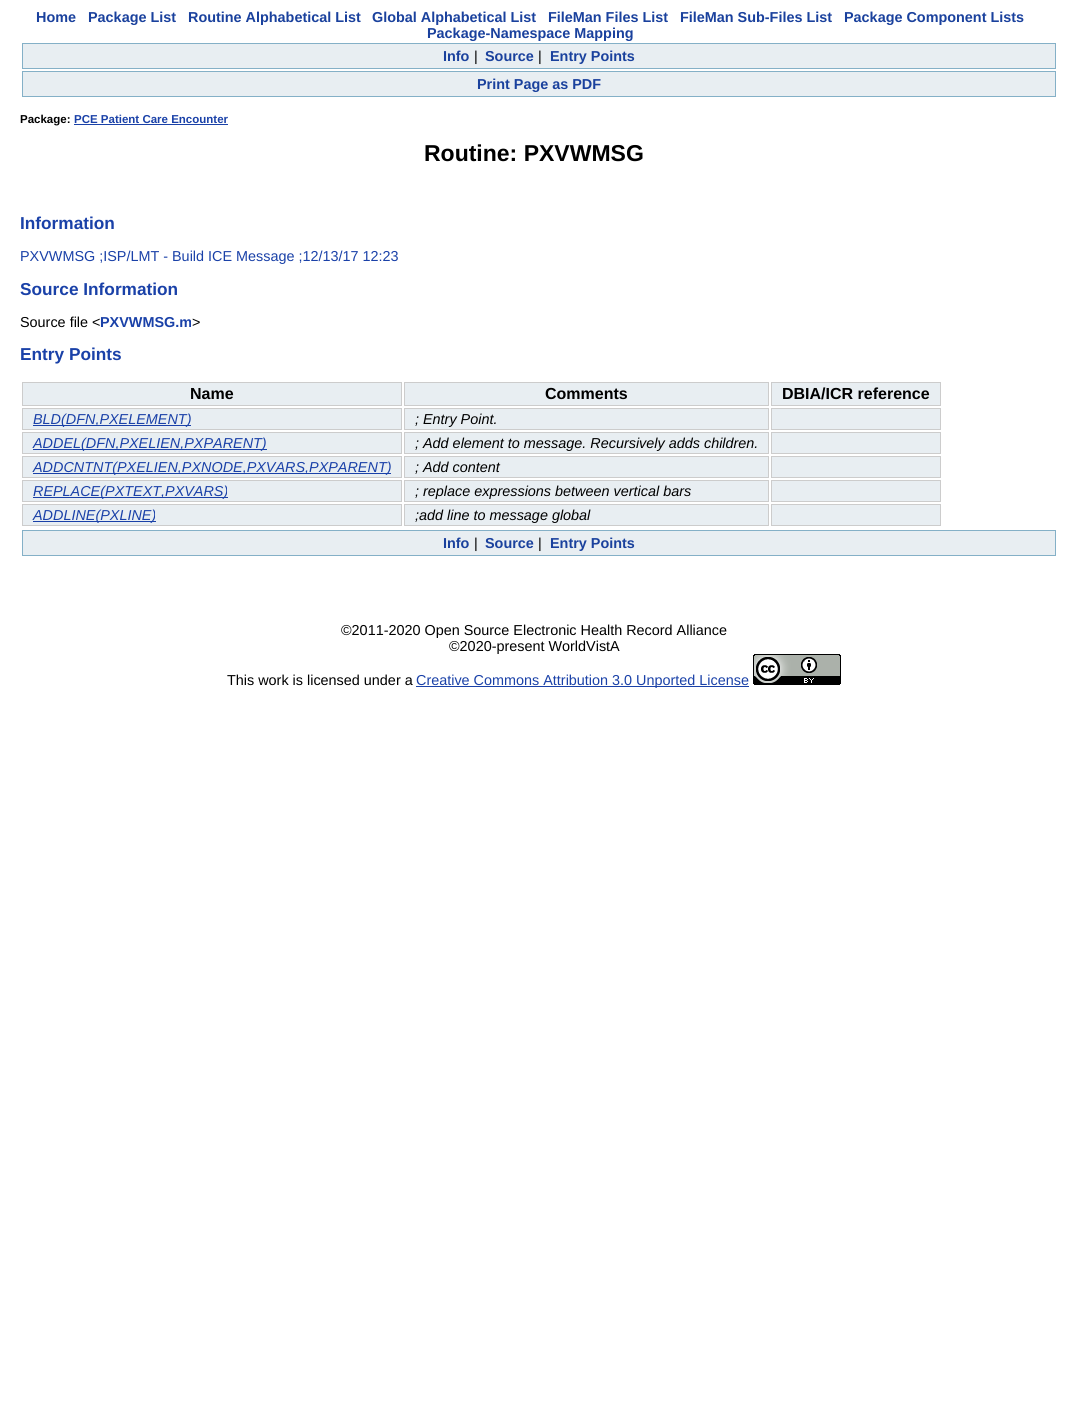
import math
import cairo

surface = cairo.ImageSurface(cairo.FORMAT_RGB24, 1068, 1424)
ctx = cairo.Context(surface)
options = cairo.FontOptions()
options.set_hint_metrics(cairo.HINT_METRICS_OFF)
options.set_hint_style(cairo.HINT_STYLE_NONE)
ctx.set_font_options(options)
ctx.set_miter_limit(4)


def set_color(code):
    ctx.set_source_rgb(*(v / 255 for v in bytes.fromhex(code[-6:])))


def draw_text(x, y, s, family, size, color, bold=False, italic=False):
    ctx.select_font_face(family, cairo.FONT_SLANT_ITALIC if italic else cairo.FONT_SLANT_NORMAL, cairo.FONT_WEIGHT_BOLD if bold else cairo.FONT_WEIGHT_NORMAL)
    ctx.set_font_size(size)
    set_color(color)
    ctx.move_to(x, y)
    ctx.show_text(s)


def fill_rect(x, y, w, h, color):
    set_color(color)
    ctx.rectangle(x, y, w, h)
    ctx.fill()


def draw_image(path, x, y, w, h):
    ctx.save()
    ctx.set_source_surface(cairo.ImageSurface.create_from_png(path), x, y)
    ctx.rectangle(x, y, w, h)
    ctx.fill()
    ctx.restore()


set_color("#ffffff")
ctx.paint()
draw_text(36, 22, "Home", "Liberation Sans", 14.4, "#1a419d", bold=True)
draw_text(88, 22, "Package List", "Liberation Sans", 14.4, "#1a419d", bold=True)
draw_text(188, 22, "Routine Alphabetical List", "Liberation Sans", 14.4, "#1a419d", bold=True)
draw_text(372, 22, "Global Alphabetical List", "Liberation Sans", 14.4, "#1a419d", bold=True)
draw_text(548, 22, "FileMan Files List", "Liberation Sans", 14.4, "#1a419d", bold=True)
draw_text(680, 22, "FileMan Sub-Files List", "Liberation Sans", 14.4, "#1a419d", bold=True)
draw_text(844, 22, "Package Component Lists", "Liberation Sans", 14.4, "#1a419d", bold=True)
draw_text(427, 38, "Package-Namespace Mapping", "Liberation Sans", 14.4, "#1a419d", bold=True)
set_color("#e8eef2")
ctx.rectangle(22.5, 43.5, 1033, 25)
ctx.fill_preserve()
set_color("#84b0c7")
ctx.set_line_width(1)
ctx.stroke()
draw_text(443, 61, "Info", "Liberation Sans", 14.4, "#1a419d", bold=True)
draw_text(474, 61, "|", "Liberation Sans", 14.4, "#000000")
draw_text(485, 61, "Source", "Liberation Sans", 14.4, "#1a419d", bold=True)
draw_text(538, 61, "|", "Liberation Sans", 14.4, "#000000")
draw_text(550, 61, "Entry Points", "Liberation Sans", 14.4, "#1a419d", bold=True)
set_color("#e8eef2")
ctx.rectangle(22.5, 71.5, 1033, 25)
ctx.fill_preserve()
set_color("#84b0c7")
ctx.stroke()
draw_text(477, 89, "Print Page as PDF", "Liberation Sans", 14.4, "#1a419d", bold=True)
draw_text(20, 123, "Package:", "Liberation Sans", 11.5, "#000000", bold=True)
draw_text(74, 123, "PCE Patient Care Encounter", "Liberation Sans", 11.5, "#1a41a8", bold=True)
fill_rect(74, 124, 154, 1, "#1a41a8")
draw_text(424, 161, "Routine: PXVWMSG", "Liberation Sans", 23, "#000000", bold=True)
draw_text(20, 229, "Information", "Liberation Sans", 17.25, "#1a41a8", bold=True)
draw_text(20, 261, "PXVWMSG ;ISP/LMT - Build ICE Message ;12/13/17 12:23", "Liberation Sans", 14.4, "#1a41a8")
draw_text(20, 295, "Source Information", "Liberation Sans", 17.25, "#1a41a8", bold=True)
draw_text(20, 327, "Source file <", "Liberation Sans", 14.4, "#000000")
draw_text(100, 327, "PXVWMSG.m", "Liberation Sans", 14.4, "#1a41a8", bold=True)
draw_text(192, 327, ">", "Liberation Sans", 14.4, "#000000")
draw_text(20, 360, "Entry Points", "Liberation Sans", 17.25, "#1a41a8", bold=True)
set_color("#e8eef2")
ctx.rectangle(22.5, 382.5, 379, 23)
ctx.fill_preserve()
set_color("#cccccc")
ctx.stroke()
draw_text(190, 399, "Name", "Liberation Sans", 16, "#000000", bold=True)
set_color("#e8eef2")
ctx.rectangle(404.5, 382.5, 364, 23)
ctx.fill_preserve()
set_color("#cccccc")
ctx.stroke()
draw_text(545, 399, "Comments", "Liberation Sans", 16, "#000000", bold=True)
set_color("#e8eef2")
ctx.rectangle(771.5, 382.5, 169, 23)
ctx.fill_preserve()
set_color("#cccccc")
ctx.stroke()
draw_text(782, 399, "DBIA/ICR reference", "Liberation Sans", 16, "#000000", bold=True)
set_color("#e8eef2")
ctx.rectangle(22.5, 408.5, 379, 21)
ctx.fill_preserve()
set_color("#cccccc")
ctx.stroke()
fill_rect(33, 425, 158, 1, "#1a41a8")
draw_text(33, 424, "BLD(DFN,PXELEMENT)", "Liberation Sans", 14.4, "#1a41a8", italic=True)
set_color("#e8eef2")
ctx.rectangle(404.5, 408.5, 364, 21)
ctx.fill_preserve()
set_color("#cccccc")
ctx.stroke()
draw_text(415, 424, "; Entry Point.", "Liberation Sans", 14.4, "#000000", italic=True)
set_color("#e8eef2")
ctx.rectangle(771.5, 408.5, 169, 21)
ctx.fill_preserve()
set_color("#cccccc")
ctx.stroke()
set_color("#e8eef2")
ctx.rectangle(22.5, 432.5, 379, 21)
ctx.fill_preserve()
set_color("#cccccc")
ctx.stroke()
fill_rect(33, 449, 234, 1, "#1a41a8")
draw_text(33, 448, "ADDEL(DFN,PXELIEN,PXPARENT)", "Liberation Sans", 14.4, "#1a41a8", italic=True)
set_color("#e8eef2")
ctx.rectangle(404.5, 432.5, 364, 21)
ctx.fill_preserve()
set_color("#cccccc")
ctx.stroke()
draw_text(415, 448, "; Add element to message. Recursively adds children.", "Liberation Sans", 14.4, "#000000", italic=True)
set_color("#e8eef2")
ctx.rectangle(771.5, 432.5, 169, 21)
ctx.fill_preserve()
set_color("#cccccc")
ctx.stroke()
set_color("#e8eef2")
ctx.rectangle(22.5, 456.5, 379, 21)
ctx.fill_preserve()
set_color("#cccccc")
ctx.stroke()
fill_rect(33, 473, 358, 1, "#1a41a8")
draw_text(33, 472, "ADDCNTNT(PXELIEN,PXNODE,PXVARS,PXPARENT)", "Liberation Sans", 14.4, "#1a41a8", italic=True)
set_color("#e8eef2")
ctx.rectangle(404.5, 456.5, 364, 21)
ctx.fill_preserve()
set_color("#cccccc")
ctx.stroke()
draw_text(415, 472, "; Add content", "Liberation Sans", 14.4, "#000000", italic=True)
set_color("#e8eef2")
ctx.rectangle(771.5, 456.5, 169, 21)
ctx.fill_preserve()
set_color("#cccccc")
ctx.stroke()
set_color("#e8eef2")
ctx.rectangle(22.5, 480.5, 379, 21)
ctx.fill_preserve()
set_color("#cccccc")
ctx.stroke()
fill_rect(33, 497, 195, 1, "#1a41a8")
draw_text(33, 496, "REPLACE(PXTEXT,PXVARS)", "Liberation Sans", 14.4, "#1a41a8", italic=True)
set_color("#e8eef2")
ctx.rectangle(404.5, 480.5, 364, 21)
ctx.fill_preserve()
set_color("#cccccc")
ctx.stroke()
draw_text(415, 496, "; replace expressions between vertical bars", "Liberation Sans", 14.4, "#000000", italic=True)
set_color("#e8eef2")
ctx.rectangle(771.5, 480.5, 169, 21)
ctx.fill_preserve()
set_color("#cccccc")
ctx.stroke()
set_color("#e8eef2")
ctx.rectangle(22.5, 504.5, 379, 21)
ctx.fill_preserve()
set_color("#cccccc")
ctx.stroke()
fill_rect(33, 521, 123, 1, "#1a41a8")
draw_text(33, 520, "ADDLINE(PXLINE)", "Liberation Sans", 14.4, "#1a41a8", italic=True)
set_color("#e8eef2")
ctx.rectangle(404.5, 504.5, 364, 21)
ctx.fill_preserve()
set_color("#cccccc")
ctx.stroke()
draw_text(415, 520, ";add line to message global", "Liberation Sans", 14.4, "#000000", italic=True)
set_color("#e8eef2")
ctx.rectangle(771.5, 504.5, 169, 21)
ctx.fill_preserve()
set_color("#cccccc")
ctx.stroke()
set_color("#e8eef2")
ctx.rectangle(22.5, 530.5, 1033, 25)
ctx.fill_preserve()
set_color("#84b0c7")
ctx.stroke()
draw_text(443, 548, "Info", "Liberation Sans", 14.4, "#1a419d", bold=True)
draw_text(474, 548, "|", "Liberation Sans", 14.4, "#000000")
draw_text(485, 548, "Source", "Liberation Sans", 14.4, "#1a419d", bold=True)
draw_text(538, 548, "|", "Liberation Sans", 14.4, "#000000")
draw_text(550, 548, "Entry Points", "Liberation Sans", 14.4, "#1a419d", bold=True)
draw_text(341, 635, "©2011-2020 Open Source Electronic Health Record Alliance", "Liberation Sans", 14.4, "#000000")
draw_text(449, 651, "©2020-present WorldVistA", "Liberation Sans", 14.4, "#000000")
draw_text(227, 685, "This work is licensed under a", "Liberation Sans", 14.4, "#000000")
fill_rect(416, 686, 333, 1, "#1a41a8")
draw_text(416, 685, "Creative Commons Attribution 3.0 Unported License", "Liberation Sans", 14.4, "#1a41a8")
draw_image("assets/img1.png", 753, 654, 88, 31)
surface.write_to_png("output.png")
